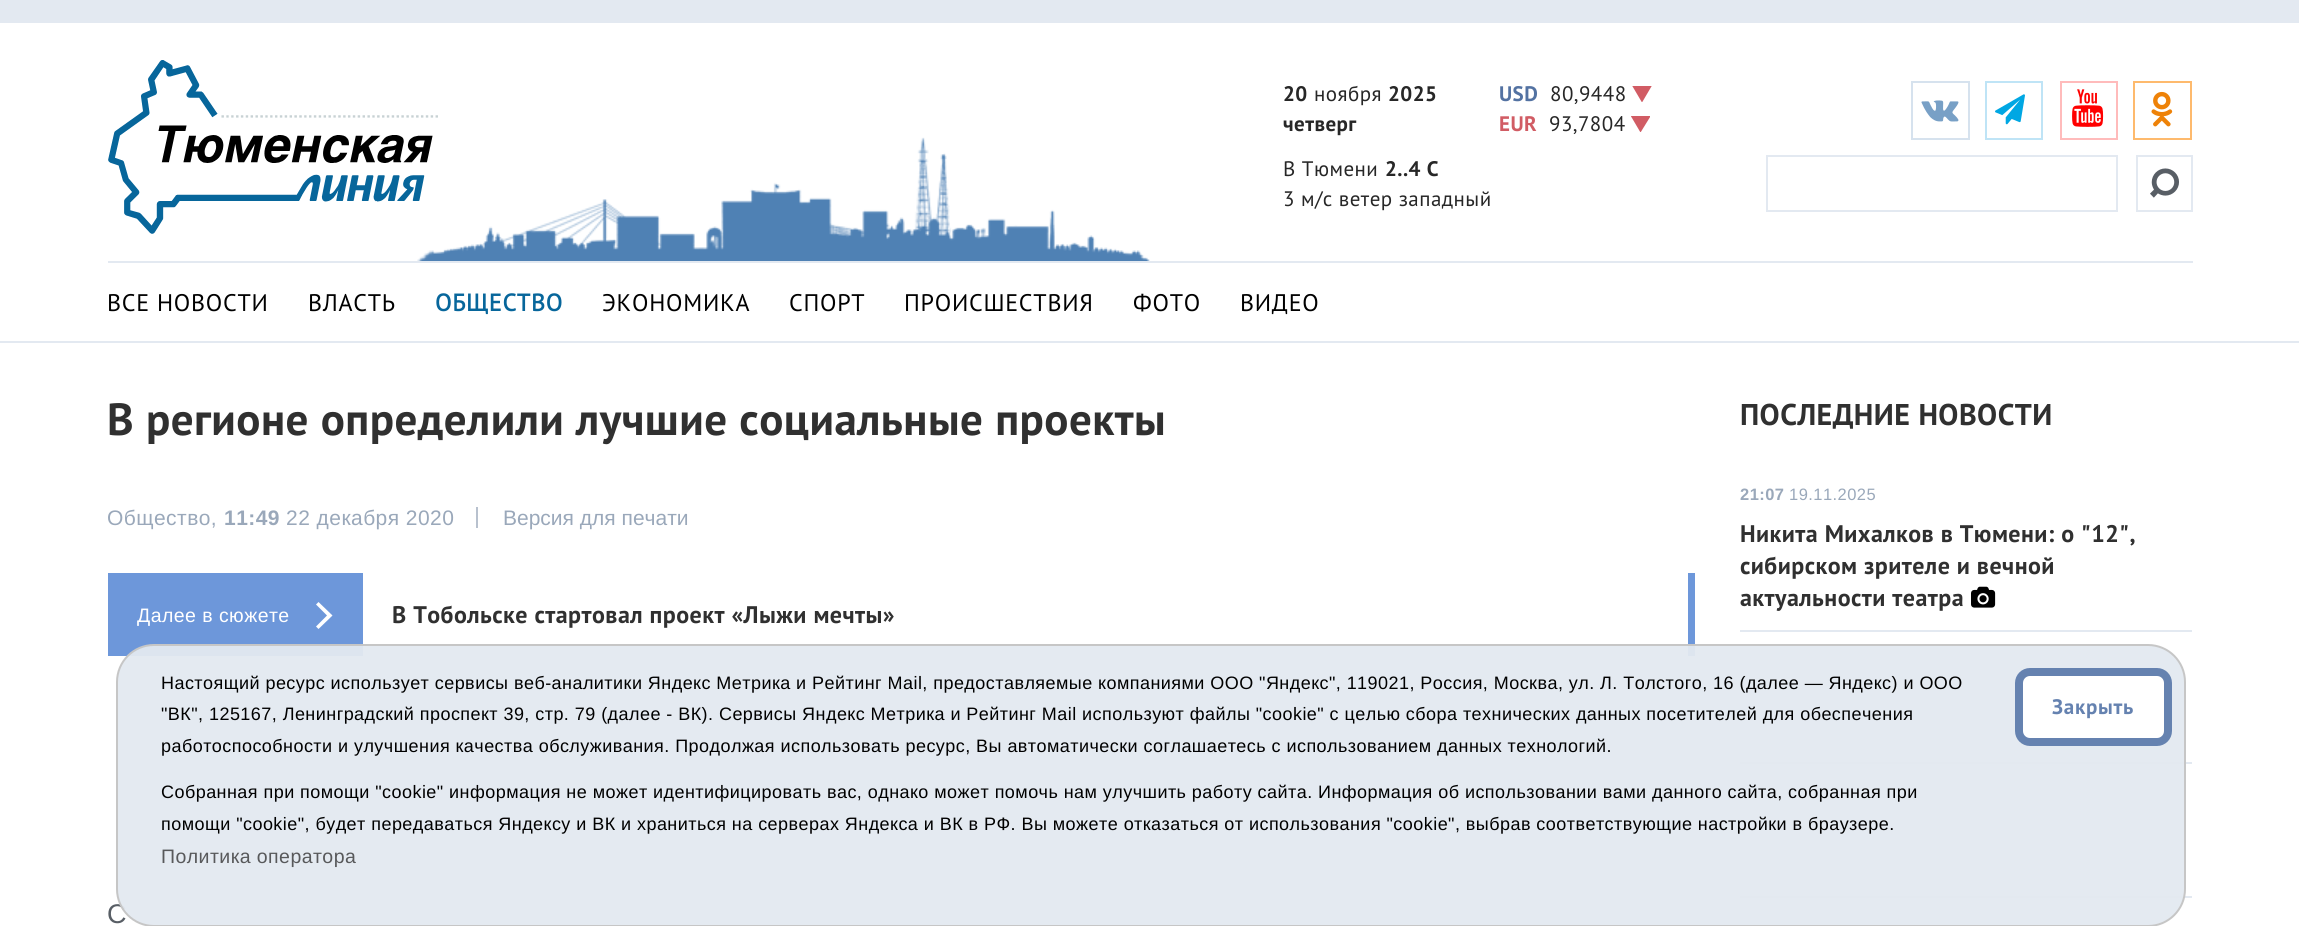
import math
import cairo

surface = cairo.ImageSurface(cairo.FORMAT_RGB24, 2299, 926)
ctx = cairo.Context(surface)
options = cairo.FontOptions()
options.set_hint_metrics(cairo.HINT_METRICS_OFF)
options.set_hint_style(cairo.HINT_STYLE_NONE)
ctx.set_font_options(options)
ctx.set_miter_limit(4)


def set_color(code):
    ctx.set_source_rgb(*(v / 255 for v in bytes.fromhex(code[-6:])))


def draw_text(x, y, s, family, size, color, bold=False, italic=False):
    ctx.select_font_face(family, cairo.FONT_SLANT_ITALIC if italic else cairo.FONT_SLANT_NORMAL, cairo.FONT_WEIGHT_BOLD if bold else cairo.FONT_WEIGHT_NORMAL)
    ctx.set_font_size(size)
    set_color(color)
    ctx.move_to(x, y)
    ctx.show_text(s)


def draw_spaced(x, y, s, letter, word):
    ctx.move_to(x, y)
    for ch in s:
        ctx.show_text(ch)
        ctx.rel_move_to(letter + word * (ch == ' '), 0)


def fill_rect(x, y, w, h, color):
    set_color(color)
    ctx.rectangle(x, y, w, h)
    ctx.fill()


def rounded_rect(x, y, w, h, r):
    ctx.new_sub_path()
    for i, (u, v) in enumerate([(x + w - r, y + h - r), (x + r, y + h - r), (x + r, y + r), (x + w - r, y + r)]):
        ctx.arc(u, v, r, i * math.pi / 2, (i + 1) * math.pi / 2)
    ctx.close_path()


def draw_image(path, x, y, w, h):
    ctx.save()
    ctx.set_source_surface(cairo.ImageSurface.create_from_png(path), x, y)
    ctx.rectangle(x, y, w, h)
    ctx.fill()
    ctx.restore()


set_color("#ffffff")
ctx.paint()
fill_rect(0, 0, 2299, 23, "#e3e9f1")
draw_image("assets/img2.png", 417, 137, 733, 124)
draw_image("assets/img1.png", 108, 60, 330, 174)
ctx.select_font_face("PT Sans", cairo.FONT_SLANT_NORMAL, cairo.FONT_WEIGHT_BOLD)
ctx.set_font_size(21)
set_color("#272727")
draw_spaced(1283, 101, "20", 0.45, 0)
ctx.select_font_face("PT Sans")
draw_spaced(1314, 101, "ноября", 0.45, 0)
ctx.select_font_face("PT Sans", cairo.FONT_SLANT_NORMAL, cairo.FONT_WEIGHT_BOLD)
draw_spaced(1388, 101, "2025", 0.45, 0)
draw_spaced(1283, 131, "четверг", 0.45, 0)
set_color("#5372a2")
draw_spaced(1499, 101, "USD", 0.45, 0)
ctx.select_font_face("PT Sans")
set_color("#272727")
draw_spaced(1550, 101, "80,9448", 0.45, 0)
ctx.save()
ctx.rectangle(1632, 86, 20, 16)
ctx.clip()
set_color("#d15c64")
ctx.new_path()
ctx.move_to(1642, 85.5)
ctx.line_to(1652, 85.5)
ctx.line_to(1642, 102.5)
ctx.line_to(1632, 85.5)
ctx.close_path()
ctx.fill()
ctx.restore()
ctx.select_font_face("PT Sans", cairo.FONT_SLANT_NORMAL, cairo.FONT_WEIGHT_BOLD)
set_color("#d15c64")
draw_spaced(1499, 131, "EUR", 0.45, 0)
ctx.select_font_face("PT Sans")
set_color("#272727")
draw_spaced(1549, 131, "93,7804", 0.45, 0)
ctx.save()
ctx.rectangle(1631, 116, 19, 16)
ctx.clip()
set_color("#d15c64")
ctx.new_path()
ctx.move_to(1640.5, 115.5)
ctx.line_to(1651, 115.5)
ctx.line_to(1640.5, 132.5)
ctx.line_to(1630.5, 115.5)
ctx.close_path()
ctx.fill()
ctx.restore()
draw_spaced(1283, 176, "В Тюмени", 0.45, 0)
ctx.select_font_face("PT Sans", cairo.FONT_SLANT_NORMAL, cairo.FONT_WEIGHT_BOLD)
draw_spaced(1385, 176, "2..4 С", 0.45, 0)
ctx.select_font_face("PT Sans")
draw_spaced(1283, 206, "3 м/с ветер западный", 0.45, 0)
ctx.rectangle(1912, 82, 57, 57)
set_color("#d6e2ee")
ctx.stroke()
draw_image("assets/img3.png", 1921, 100, 38, 22)
ctx.rectangle(1986, 82, 56, 57)
set_color("#bfe4f6")
ctx.stroke()
draw_image("assets/img4.png", 1995, 94, 30, 31)
ctx.rectangle(2061, 82, 56, 57)
set_color("#ffbbbb")
ctx.stroke()
draw_image("assets/img5.png", 2072, 89, 32, 38)
ctx.rectangle(2134, 82, 57, 57)
set_color("#feba6d")
ctx.stroke()
draw_image("assets/img6.png", 2151, 91, 22, 36)
ctx.rectangle(1767, 156, 350, 55)
set_color("#e3e9f1")
ctx.stroke()
ctx.rectangle(2137, 156, 55, 55)
ctx.stroke()
draw_image("assets/img7.png", 2150, 168, 29, 30)
fill_rect(108, 261, 2085, 2, "#e3e9f1")
ctx.set_font_size(24)
set_color("#000000")
draw_spaced(107, 311, "ВСЕ НОВОСТИ", 0.75, 0)
draw_spaced(308, 311, "ВЛАСТЬ", 0.75, 0)
ctx.select_font_face("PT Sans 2", cairo.FONT_SLANT_NORMAL, cairo.FONT_WEIGHT_BOLD)
set_color("#07669b")
draw_spaced(435, 311, "ОБЩЕСТВО", 0.75, 0)
ctx.select_font_face("PT Sans")
set_color("#000000")
draw_spaced(602, 311, "ЭКОНОМИКА", 0.75, 0)
draw_spaced(789, 311, "СПОРТ", 0.75, 0)
draw_spaced(904, 311, "ПРОИСШЕСТВИЯ", 0.75, 0)
draw_spaced(1133, 311, "ФОТО", 0.75, 0)
draw_spaced(1240, 311, "ВИДЕО", 0.75, 0)
fill_rect(0, 341, 2299, 2, "#e3e9f1")
ctx.select_font_face("PT Sans", cairo.FONT_SLANT_NORMAL, cairo.FONT_WEIGHT_BOLD)
ctx.set_font_size(45)
set_color("#303030")
draw_spaced(107, 435, "В регионе определили лучшие социальные проекты", 0.45, 0)
ctx.select_font_face("Liberation Sans")
ctx.set_font_size(21)
set_color("#9aa8ba")
draw_spaced(107, 525, "Общество,", 0.45, 0)
ctx.select_font_face("Liberation Sans", cairo.FONT_SLANT_NORMAL, cairo.FONT_WEIGHT_BOLD)
draw_spaced(224, 525, "11:49", 0.45, 0)
ctx.select_font_face("Liberation Sans")
draw_spaced(286, 525, "22 декабря 2020", 0.45, 0)
fill_rect(476, 507, 2, 21, "#b8c1ce")
draw_text(503, 525, "Версия для печати", "Liberation Sans", 21, "#9aa8ba")
fill_rect(108, 573, 255, 83, "#6d97da")
ctx.set_font_size(19.5)
set_color("#ffffff")
draw_spaced(137, 622, "Далее в сюжете", 0.45, 0)
ctx.new_path()
ctx.move_to(318.5, 602)
ctx.line_to(316, 604.5)
ctx.line_to(327, 615.5)
ctx.line_to(316, 626.5)
ctx.line_to(318.5, 629)
ctx.line_to(332.5, 615.5)
ctx.close_path()
ctx.fill()
fill_rect(1688, 573, 7, 83, "#6d97da")
ctx.select_font_face("PT Sans", cairo.FONT_SLANT_NORMAL, cairo.FONT_WEIGHT_BOLD)
ctx.set_font_size(24)
set_color("#303030")
draw_spaced(392, 623, "В Тобольске стартовал проект «Лыжи мечты»", 0.45, 0)
ctx.select_font_face("Liberation Sans")
ctx.set_font_size(27)
set_color("#585e65")
draw_spaced(107, 923, "С", 1, 0)
ctx.select_font_face("PT Sans", cairo.FONT_SLANT_NORMAL, cairo.FONT_WEIGHT_BOLD)
ctx.set_font_size(30)
set_color("#303030")
draw_spaced(1740, 425, "ПОСЛЕДНИЕ НОВОСТИ", 0.45, 0)
fill_rect(1740, 630, 452, 2, "#e3e9f1")
ctx.select_font_face("Liberation Sans", cairo.FONT_SLANT_NORMAL, cairo.FONT_WEIGHT_BOLD)
ctx.set_font_size(16.5)
set_color("#9aa8ba")
draw_spaced(1740, 500, "21:07", 0.45, 0)
ctx.select_font_face("Liberation Sans")
draw_spaced(1789, 500, "19.11.2025", 0.45, 0)
ctx.select_font_face("PT Sans", cairo.FONT_SLANT_NORMAL, cairo.FONT_WEIGHT_BOLD)
ctx.set_font_size(24)
set_color("#303030")
draw_spaced(1740, 542, "Никита Михалков в Тюмени: о \"12\",", 0.45, 0)
draw_spaced(1740, 574, "сибирском зрителе и вечной", 0.45, 0)
draw_spaced(1740, 606, "актуальности театра", 0.45, 0)
draw_image("assets/img8.png", 1971, 586, 25, 22)
fill_rect(1740, 762, 452, 2, "#e3e9f1")
fill_rect(1740, 896, 452, 2, "#e3e9f1")
ctx.set_source_rgba(0.89, 0.914, 0.945, 0.95)
rounded_rect(117, 645, 2068, 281, 37)
ctx.fill_preserve()
set_color("#c6c6c6")
ctx.stroke()
ctx.select_font_face("Liberation Sans")
ctx.set_font_size(18)
set_color("#000000")
draw_spaced(161, 689, "Настоящий ресурс использует сервисы веб-аналитики Яндекс Метрика и Рейтинг Mail, предоставляемые компаниями ООО \"Яндекс\", 119021, Россия, Москва, ул. Л. Толстого, 16 (далее — Яндекс) и ООО", 0.45, 0)
draw_spaced(161, 720, "\"ВК\", 125167, Ленинградский проспект 39, стр. 79 (далее - ВК). Сервисы Яндекс Метрика и Рейтинг Mail используют файлы \"cookie\" с целью сбора технических данных посетителей для обеспечения", 0.45, 0)
draw_spaced(161, 752, "работоспособности и улучшения качества обслуживания. Продолжая использовать ресурс, Вы автоматически соглашаетесь с использованием данных технологий.", 0.45, 0)
draw_spaced(161, 798, "Собранная при помощи \"cookie\" информация не может идентифицировать вас, однако может помочь нам улучшить работу сайта. Информация об использовании вами данного сайта, собранная при", 0.45, 0)
draw_spaced(161, 830, "помощи \"cookie\", будет передаваться Яндексу и ВК и храниться на серверах Яндекса и ВК в РФ. Вы можете отказаться от использования \"cookie\", выбрав соответствующие настройки в браузере.", 0.45, 0)
ctx.set_font_size(19.5)
set_color("#58595b")
draw_spaced(161, 863, "Политика оператора", 0.45, 0)
set_color("#ffffff")
rounded_rect(2019, 672, 149, 70, 11)
ctx.fill_preserve()
set_color("#6582b0")
ctx.set_line_width(8)
ctx.stroke()
ctx.select_font_face("PT Sans", cairo.FONT_SLANT_NORMAL, cairo.FONT_WEIGHT_BOLD)
ctx.set_font_size(21)
draw_spaced(2052, 714, "Закрыть", 0.75, 0)
surface.write_to_png("output.png")
